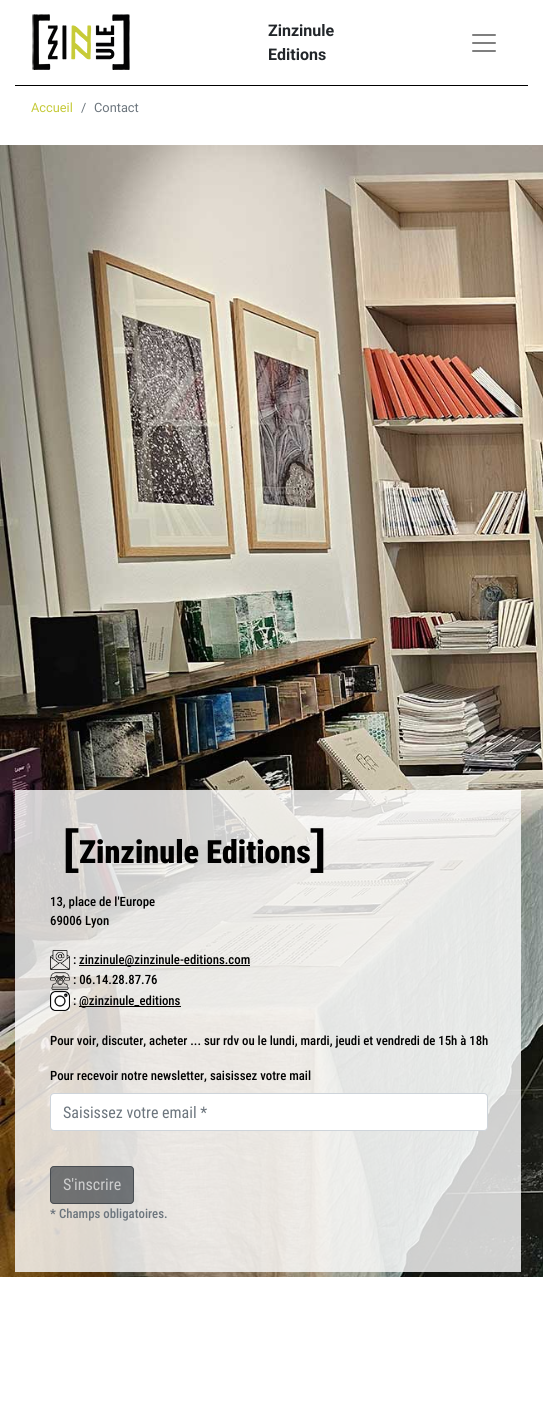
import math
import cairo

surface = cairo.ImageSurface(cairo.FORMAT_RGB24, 543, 1415)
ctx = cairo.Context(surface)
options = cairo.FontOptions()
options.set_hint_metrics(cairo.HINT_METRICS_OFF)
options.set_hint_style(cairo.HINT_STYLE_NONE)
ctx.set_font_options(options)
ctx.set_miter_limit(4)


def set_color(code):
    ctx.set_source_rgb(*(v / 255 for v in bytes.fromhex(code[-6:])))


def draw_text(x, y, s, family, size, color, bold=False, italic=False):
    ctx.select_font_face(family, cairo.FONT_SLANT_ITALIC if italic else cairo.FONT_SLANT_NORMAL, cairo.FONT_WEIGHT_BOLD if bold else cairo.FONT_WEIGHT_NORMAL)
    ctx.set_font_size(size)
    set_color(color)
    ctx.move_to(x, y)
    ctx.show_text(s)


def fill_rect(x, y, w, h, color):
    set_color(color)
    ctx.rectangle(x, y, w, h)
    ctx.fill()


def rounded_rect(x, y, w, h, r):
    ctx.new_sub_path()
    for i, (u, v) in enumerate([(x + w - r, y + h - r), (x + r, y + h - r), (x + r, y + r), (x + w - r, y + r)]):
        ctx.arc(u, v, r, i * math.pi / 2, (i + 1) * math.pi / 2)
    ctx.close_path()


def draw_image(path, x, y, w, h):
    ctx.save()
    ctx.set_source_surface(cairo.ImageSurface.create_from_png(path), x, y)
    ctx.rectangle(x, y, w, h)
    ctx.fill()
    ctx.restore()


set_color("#ffffff")
ctx.paint()
fill_rect(15, 85, 513, 1, "#000000")
draw_image("assets/img1.png", 32, 14, 98, 56)
draw_text(268, 36, "Zinzinule", "Roboto", 16, "#212529", bold=True)
draw_text(268, 60, "Editions", "Roboto", 16, "#212529", bold=True)
draw_image("assets/img2.png", 472, 34, 24, 18)
draw_text(31, 112, "Accueil", "Roboto", 12.8, "#c5ca39")
draw_text(81, 112, "/", "Roboto", 12.8, "#6c757d")
draw_text(94, 112, "Contact", "Roboto", 12.8, "#6c757d")
draw_image("assets/img3.png", 0, 145, 543, 1132)
ctx.set_source_rgba(1, 1, 1, 0.8)
ctx.rectangle(15, 790, 506, 482)
ctx.fill()
draw_text(63, 863, "[", "Liberation Sans", 48, "#000000", bold=True)
draw_text(79, 863, "Zinzinule Editions", "Roboto Condensed Black", 32, "#000000")
draw_text(310, 863, "]", "Liberation Sans", 48, "#000000", bold=True)
draw_text(50, 906, "13, place de l'Europe", "Roboto Condensed Medium", 12.8, "#000000")
draw_text(50, 925, "69006 Lyon", "Roboto Condensed Medium", 12.8, "#000000")
draw_image("assets/img4.png", 50, 950, 20, 20)
draw_text(73, 964, ":", "Roboto Condensed Medium", 12.8, "#000000")
fill_rect(79, 965, 171, 1, "#000000")
draw_text(79, 964, "zinzinule@zinzinule-editions.com", "Roboto Condensed Medium", 12.8, "#000000")
draw_image("assets/img5.png", 50, 972, 20, 18)
draw_text(73, 984, ": 06.14.28.87.76", "Roboto Condensed Medium", 12.8, "#000000")
draw_image("assets/img6.png", 50, 991, 20, 20)
draw_text(73, 1005, ":", "Roboto Condensed Medium", 12.8, "#000000")
fill_rect(79, 1006, 102, 1, "#000000")
draw_text(79, 1005, "@zinzinule_editions", "Roboto Condensed Medium", 12.8, "#000000")
draw_text(50, 1045, "Pour voir, discuter, acheter ... sur rdv ou le lundi, mardi, jeudi et vendredi de 15h à 18h", "Roboto Condensed Medium", 12.8, "#000000")
draw_text(50, 1080, "Pour recevoir notre newsletter, saisissez votre mail", "Roboto Condensed Medium", 12.8, "#000000")
set_color("#ffffff")
rounded_rect(50.5, 1093.5, 437, 37, 3.5)
ctx.fill_preserve()
set_color("#ced4da")
ctx.set_line_width(1)
ctx.stroke()
draw_text(63, 1118, "Saisissez votre email *", "Roboto Condensed", 16, "#6c757d")
ctx.set_source_rgba(0.204, 0.227, 0.251, 0.65)
rounded_rect(50, 1166, 84, 38, 4)
ctx.fill()
rounded_rect(50.5, 1166.5, 83, 37, 3.5)
ctx.stroke()
draw_text(63, 1190, "S'inscrire", "Roboto Condensed", 16, "#cdcece")
draw_text(50, 1218, "*", "Roboto Condensed", 12.8, "#6c757d", bold=True)
draw_text(59, 1218, "Champs obligatoires.", "Roboto Condensed Medium", 12.8, "#6c757d")
surface.write_to_png("output.png")
